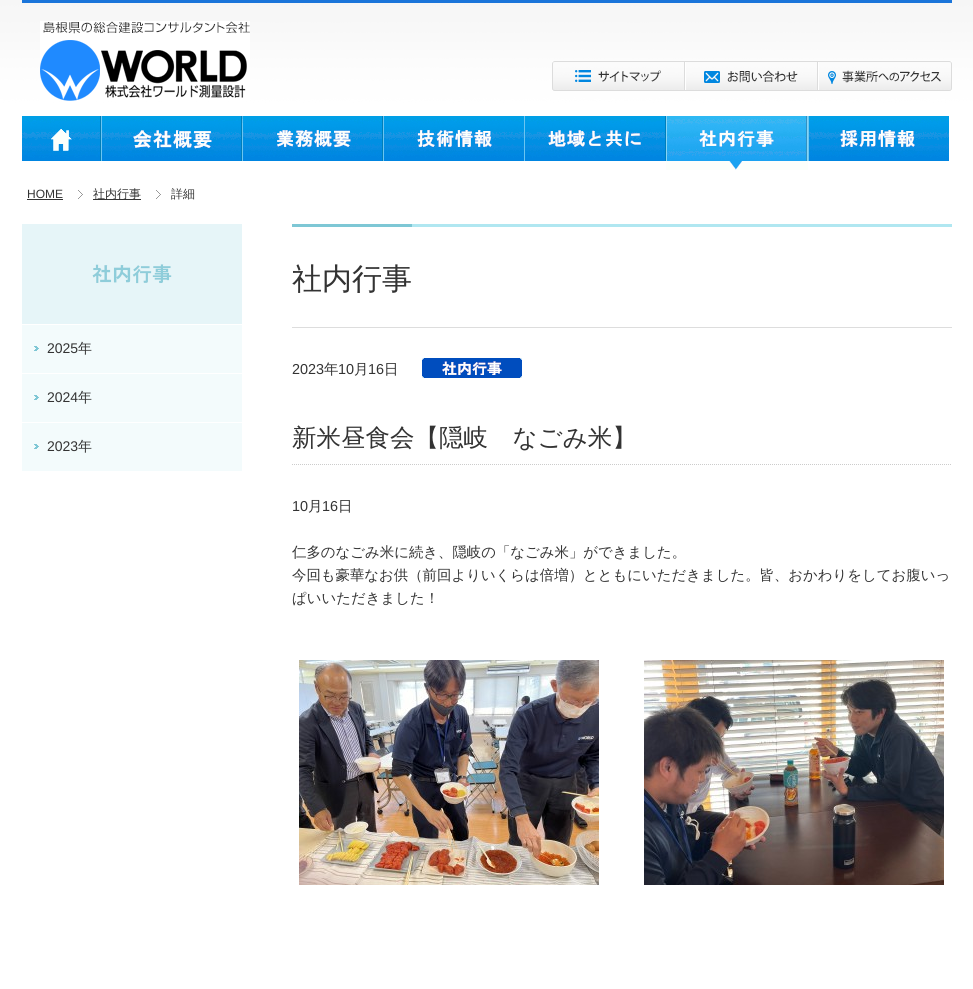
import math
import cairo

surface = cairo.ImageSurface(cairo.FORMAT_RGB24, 973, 989)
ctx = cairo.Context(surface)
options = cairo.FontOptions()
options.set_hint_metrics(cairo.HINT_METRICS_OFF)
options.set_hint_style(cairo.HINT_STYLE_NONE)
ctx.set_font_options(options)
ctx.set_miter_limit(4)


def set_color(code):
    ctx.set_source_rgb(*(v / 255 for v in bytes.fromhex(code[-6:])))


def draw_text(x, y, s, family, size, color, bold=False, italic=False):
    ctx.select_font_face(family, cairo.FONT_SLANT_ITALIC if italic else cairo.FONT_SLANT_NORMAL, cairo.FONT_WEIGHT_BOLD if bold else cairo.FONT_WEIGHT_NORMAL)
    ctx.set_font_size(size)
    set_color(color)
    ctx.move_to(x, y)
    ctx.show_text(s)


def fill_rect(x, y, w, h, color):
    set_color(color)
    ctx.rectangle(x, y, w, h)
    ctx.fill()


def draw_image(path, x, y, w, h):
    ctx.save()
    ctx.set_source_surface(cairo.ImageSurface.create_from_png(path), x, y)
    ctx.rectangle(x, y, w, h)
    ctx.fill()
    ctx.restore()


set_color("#ffffff")
ctx.paint()
draw_image("assets/img1.png", 0, 0, 973, 404)
fill_rect(22, 0, 930, 3, "#1a75da")
draw_image("assets/img2.png", 40, 21, 210, 80)
draw_image("assets/img3.png", 552, 61, 133, 30)
draw_image("assets/img4.png", 685, 61, 133, 30)
draw_image("assets/img5.png", 818, 61, 134, 30)
draw_image("assets/img6.png", 22, 116, 79, 45)
draw_image("assets/img7.png", 101, 116, 141, 45)
draw_image("assets/img8.png", 242, 116, 141, 45)
draw_image("assets/img9.png", 383, 116, 141, 45)
draw_image("assets/img10.png", 524, 116, 142, 45)
draw_image("assets/img11.png", 666, 116, 142, 54)
draw_image("assets/img12.png", 808, 116, 141, 45)
draw_text(27, 198, "HOME", "Liberation Sans", 12, "#333333")
fill_rect(27, 199, 36, 1, "#333333")
draw_image("assets/img13.png", 78, 190, 5, 9)
fill_rect(93, 199, 48, 1, "#333333")
draw_text(93, 198, "社内行事", "WenQuanYi Zen Hei Medium", 12, "#333333")
draw_image("assets/img13.png", 156, 190, 5, 9)
draw_text(171, 198, "詳細", "WenQuanYi Zen Hei Medium", 12, "#333333")
draw_image("assets/img14.png", 22, 224, 220, 100)
fill_rect(22, 325, 220, 48, "#f3fbfc")
draw_image("assets/img15.png", 34, 346, 5, 5)
draw_text(47, 353, "2025", "Liberation Sans", 14, "#333333")
draw_text(78, 353, "年", "WenQuanYi Zen Hei Medium", 14, "#333333")
fill_rect(22, 374, 220, 48, "#f3fbfc")
draw_image("assets/img15.png", 34, 395, 5, 5)
draw_text(47, 402, "2024", "Liberation Sans", 14, "#333333")
draw_text(78, 402, "年", "WenQuanYi Zen Hei Medium", 14, "#333333")
fill_rect(22, 423, 220, 48, "#f3fbfc")
draw_image("assets/img15.png", 34, 444, 5, 5)
draw_text(47, 451, "2023", "Liberation Sans", 14, "#333333")
draw_text(78, 451, "年", "WenQuanYi Zen Hei Medium", 14, "#333333")
fill_rect(412, 224, 540, 3, "#b0e7f1")
fill_rect(292, 327, 660, 1, "#dddddd")
fill_rect(292, 224, 120, 3, "#7ec7d5")
draw_text(292, 289, "社内行事", "WenQuanYi Zen Hei Medium", 30, "#333333")
draw_text(292, 374, "2023", "Liberation Sans", 14.4, "#333333")
draw_text(324, 374, "年", "WenQuanYi Zen Hei Medium", 14.4, "#333333")
draw_text(338, 374, "10", "Liberation Sans", 14.4, "#333333")
draw_text(354, 374, "月", "WenQuanYi Zen Hei Medium", 14.4, "#333333")
draw_text(368, 374, "16", "Liberation Sans", 14.4, "#333333")
draw_text(384, 374, "日", "WenQuanYi Zen Hei Medium", 14.4, "#333333")
draw_image("assets/img16.png", 422, 358, 100, 20)
ctx.new_path()
ctx.move_to(292, 464.5)
ctx.line_to(952, 464.5)
set_color("#cccccc")
ctx.set_line_width(1)
ctx.set_dash([1, 1])
ctx.stroke()
draw_text(292, 446, "新米昼食会【隠岐　なごみ米】", "WenQuanYi Zen Hei Medium", 24.5, "#333333")
draw_text(292, 511, "10", "Liberation Sans", 14.4, "#333333")
draw_text(308, 511, "月", "WenQuanYi Zen Hei Medium", 14.4, "#333333")
draw_text(322, 511, "16", "Liberation Sans", 14.4, "#333333")
draw_text(338, 511, "日", "WenQuanYi Zen Hei Medium", 14.4, "#333333")
draw_text(292, 557, "仁多のなごみ米に続き、隠岐の「なごみ米」ができました。", "WenQuanYi Zen Hei Medium", 14.4, "#333333")
draw_text(292, 580, "今回も豪華なお供（前回よりいくらは倍増）とともにいただきました。皆、おかわりをしてお腹いっ", "WenQuanYi Zen Hei Medium", 14.4, "#333333")
draw_text(292, 603, "ぱいいただきました！", "WenQuanYi Zen Hei Medium", 14.4, "#333333")
draw_image("assets/img17.png", 299, 660, 300, 225)
draw_image("assets/img18.png", 644, 660, 300, 225)
surface.write_to_png("output.png")
